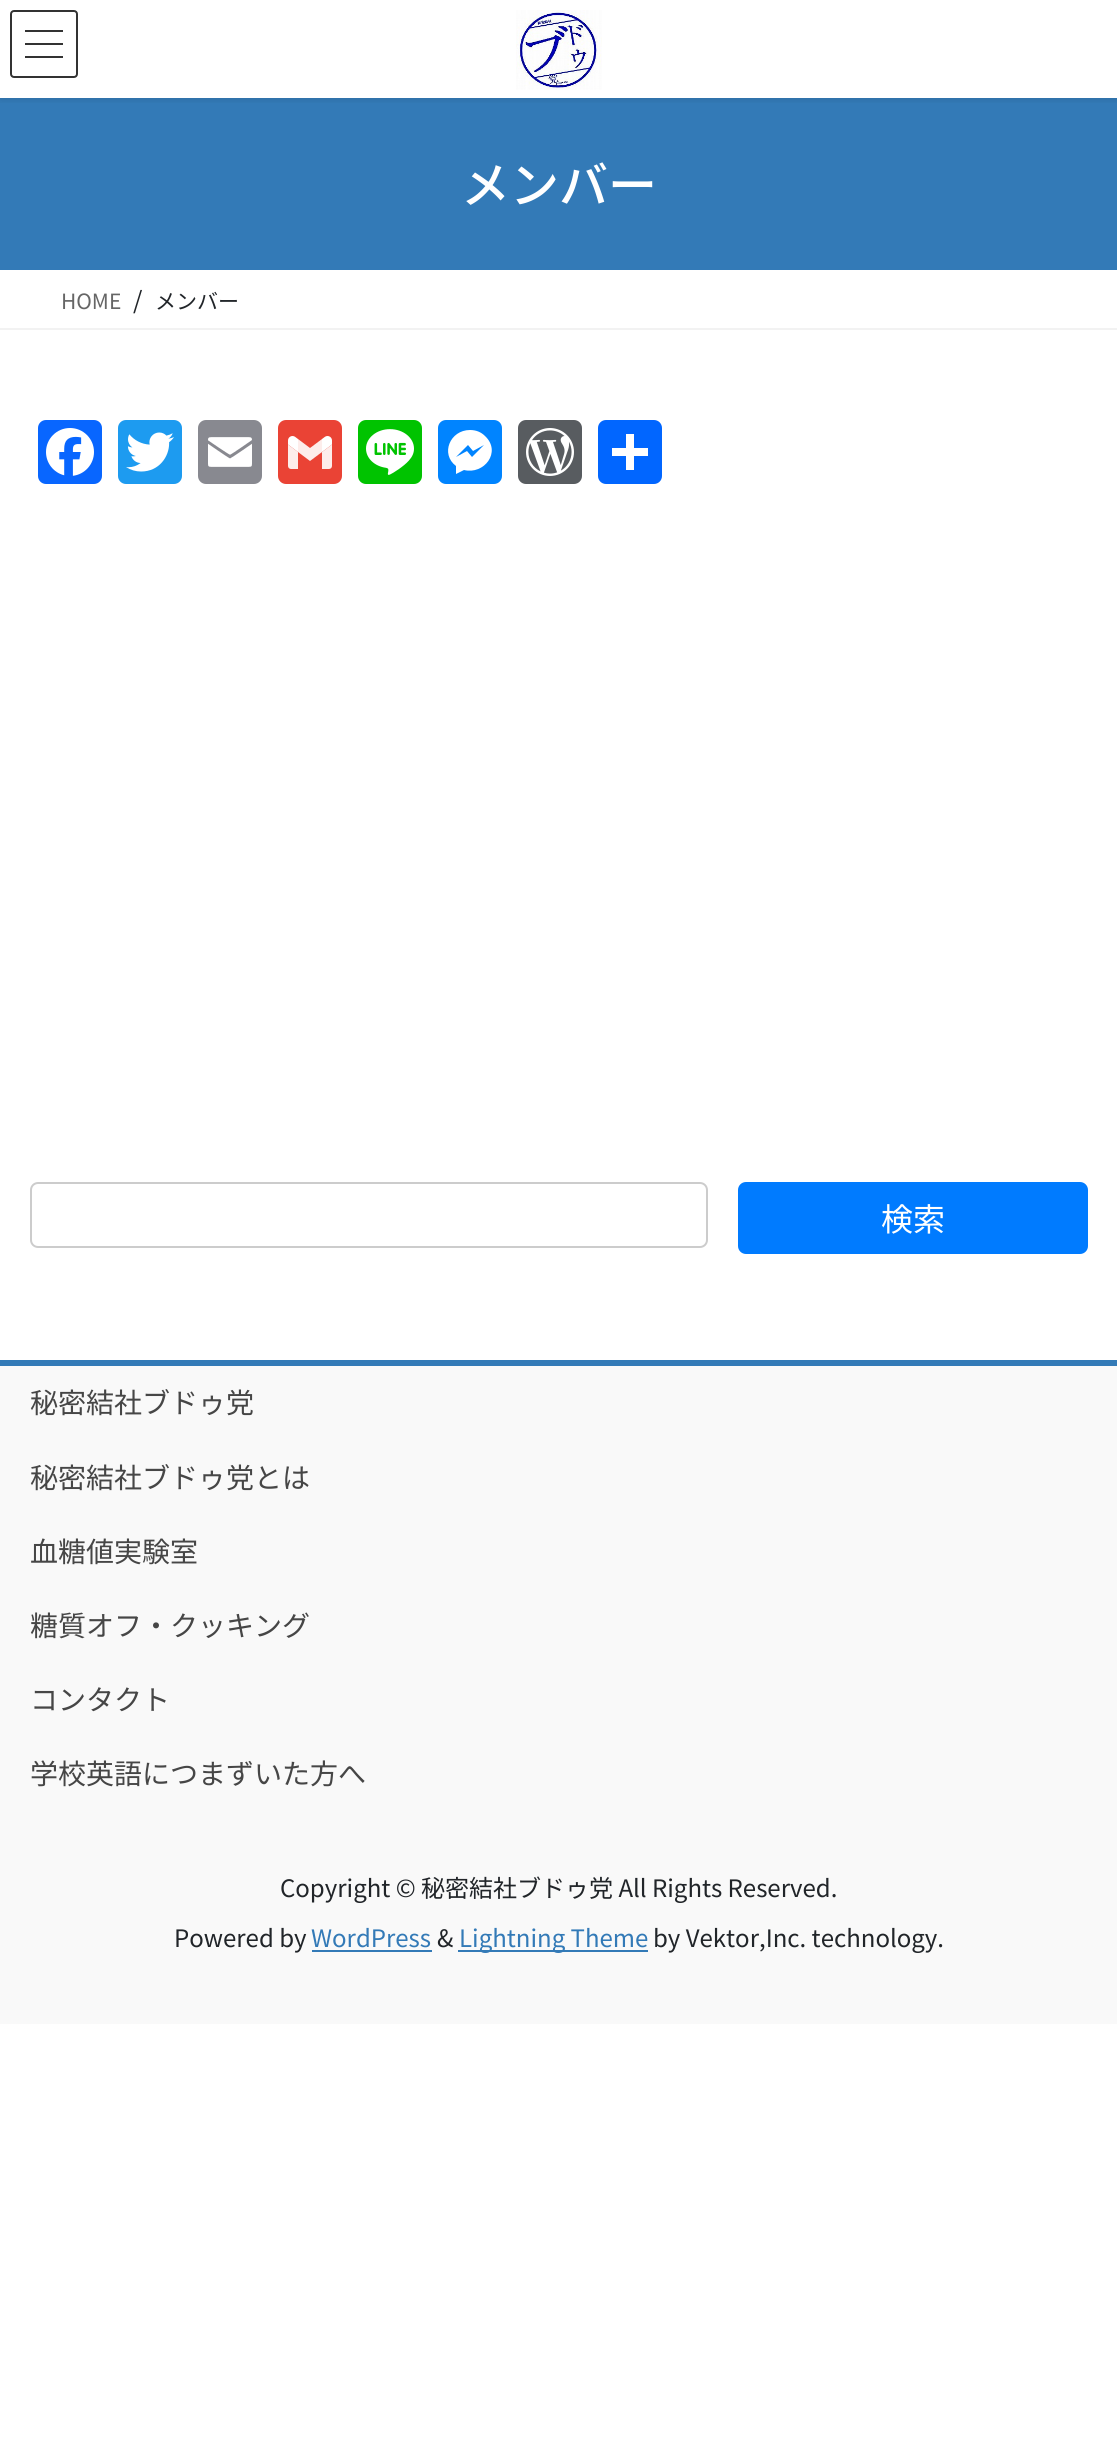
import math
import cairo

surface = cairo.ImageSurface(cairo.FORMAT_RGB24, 1117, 2446)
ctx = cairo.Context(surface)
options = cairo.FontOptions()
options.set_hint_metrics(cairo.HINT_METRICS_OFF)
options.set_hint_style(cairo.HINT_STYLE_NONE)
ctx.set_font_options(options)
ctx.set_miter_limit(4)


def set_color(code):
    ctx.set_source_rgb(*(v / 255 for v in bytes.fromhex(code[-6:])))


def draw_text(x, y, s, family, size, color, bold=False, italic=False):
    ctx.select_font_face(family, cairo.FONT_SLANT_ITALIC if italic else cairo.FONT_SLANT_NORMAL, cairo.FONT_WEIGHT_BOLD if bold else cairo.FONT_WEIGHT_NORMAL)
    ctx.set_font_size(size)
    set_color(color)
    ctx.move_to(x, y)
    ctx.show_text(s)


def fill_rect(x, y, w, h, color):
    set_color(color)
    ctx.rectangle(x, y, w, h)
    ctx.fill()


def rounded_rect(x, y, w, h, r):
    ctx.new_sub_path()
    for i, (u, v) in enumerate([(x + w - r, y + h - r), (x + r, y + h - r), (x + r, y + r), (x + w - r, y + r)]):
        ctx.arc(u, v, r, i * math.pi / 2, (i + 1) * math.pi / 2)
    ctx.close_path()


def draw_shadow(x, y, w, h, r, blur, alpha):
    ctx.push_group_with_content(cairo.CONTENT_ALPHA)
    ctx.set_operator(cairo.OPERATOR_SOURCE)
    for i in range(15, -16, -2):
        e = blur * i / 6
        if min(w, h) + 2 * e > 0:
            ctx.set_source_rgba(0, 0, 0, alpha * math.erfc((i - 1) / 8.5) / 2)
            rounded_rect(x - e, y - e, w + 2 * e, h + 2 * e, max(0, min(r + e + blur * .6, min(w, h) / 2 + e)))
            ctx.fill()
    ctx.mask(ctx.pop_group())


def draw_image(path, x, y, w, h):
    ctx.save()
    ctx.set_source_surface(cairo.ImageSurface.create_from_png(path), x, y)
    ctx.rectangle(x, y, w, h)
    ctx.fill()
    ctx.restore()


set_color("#ffffff")
ctx.paint()
fill_rect(0, 98, 1117, 172, "#337ab7")
ctx.save()
ctx.rectangle(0, 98, 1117, 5)
ctx.clip()
set_color("#000000")
draw_shadow(0, 2, 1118, 98, 0, 3, 0.1)
ctx.restore()
draw_image("assets/img1.png", 516, 10, 86, 80)
fill_rect(25, 30, 38, 2, "#333333")
fill_rect(25, 43, 38, 2, "#333333")
fill_rect(25, 56, 38, 2, "#333333")
rounded_rect(11, 11, 66, 66, 3)
ctx.stroke()
draw_text(461, 203, "メンバー", "Noto Sans JP Medium", 49, "#ffffff")
fill_rect(0, 328, 1117, 2, "#f2f2f2")
draw_text(61, 309, "HOME", "Noto Sans JP", 21, "#666666")
draw_text(133, 309, "/", "Noto Sans JP", 24, "#212529")
draw_text(155, 309, "メンバー", "Noto Sans JP", 21, "#212529")
set_color("#0866ff")
rounded_rect(38, 420, 64, 64, 8)
ctx.fill()
draw_image("assets/img2.png", 46, 428, 48, 48)
set_color("#1d9bf0")
rounded_rect(118, 420, 64, 64, 8)
ctx.fill()
draw_image("assets/img3.png", 126, 432, 48, 40)
set_color("#888990")
rounded_rect(198, 420, 64, 64, 8)
ctx.fill()
draw_image("assets/img4.png", 208, 437, 44, 30)
set_color("#ea4335")
rounded_rect(278, 420, 64, 64, 8)
ctx.fill()
draw_image("assets/img5.png", 288, 436, 44, 33)
set_color("#00c300")
rounded_rect(358, 420, 64, 64, 8)
ctx.fill()
draw_image("assets/img6.png", 366, 429, 48, 46)
set_color("#0084ff")
rounded_rect(438, 420, 64, 64, 8)
ctx.fill()
set_color("#ffffff")
ctx.new_path()
ctx.move_to(470, 430)
ctx.curve_to(450, 430, 440, 454, 456, 466)
ctx.line_to(456, 474)
ctx.line_to(464, 470)
ctx.curve_to(484, 475, 502, 452, 485, 436)
ctx.curve_to(481, 432, 476, 430, 470, 430)
ctx.move_to(472, 457)
ctx.line_to(467, 451)
ctx.line_to(456, 457)
ctx.line_to(468, 445)
ctx.line_to(473, 451)
ctx.line_to(484, 445)
ctx.close_path()
ctx.fill()
set_color("#585c60")
rounded_rect(518, 420, 64, 64, 8)
ctx.fill()
draw_image("assets/img7.png", 526, 428, 48, 48)
set_color("#0166ff")
rounded_rect(598, 420, 64, 64, 8)
ctx.fill()
fill_rect(626, 434, 8, 36, "#ffffff")
fill_rect(612, 448, 36, 8, "#ffffff")
rounded_rect(31, 1183, 676, 64, 7)
set_color("#cccccc")
ctx.stroke()
set_color("#007bff")
rounded_rect(738, 1182, 350, 72, 8)
ctx.fill()
draw_text(881, 1231, "検索", "Noto Sans JP", 32, "#ffffff")
fill_rect(0, 1366, 1117, 658, "#f9f9f9")
fill_rect(0, 1360, 1117, 6, "#337ab7")
draw_text(30, 1413, "秘密結社ブドゥ党", "Noto Sans JP", 28, "#464646")
draw_text(30, 1488, "秘密結社ブドゥ党とは", "Noto Sans JP", 28, "#464646")
draw_text(30, 1562, "血糖値実験室", "Noto Sans JP", 28, "#464646")
draw_text(30, 1636, "糖質オフ・クッキング", "Noto Sans JP", 28, "#464646")
draw_text(30, 1710, "コンタクト", "Noto Sans JP", 28, "#464646")
draw_text(30, 1784, "学校英語につまずいた方へ", "Noto Sans JP", 28, "#464646")
draw_text(280, 1897, "Copyright © 秘密結社ブドゥ党 All Rights Reserved.", "Noto Sans JP", 24, "#212529")
draw_text(174, 1947, "Powered by", "Noto Sans JP", 24, "#212529")
draw_text(311, 1947, "WordPress", "Noto Sans JP", 24, "#337ab7")
fill_rect(312, 1950, 120, 2, "#337ab7")
draw_text(437, 1947, "&", "Noto Sans JP", 24, "#212529")
fill_rect(458, 1950, 190, 2, "#337ab7")
draw_text(459, 1947, "Lightning Theme", "Noto Sans JP", 24, "#337ab7")
draw_text(653, 1947, "by Vektor,Inc. technology.", "Noto Sans JP", 24, "#212529")
surface.write_to_png("output.png")
